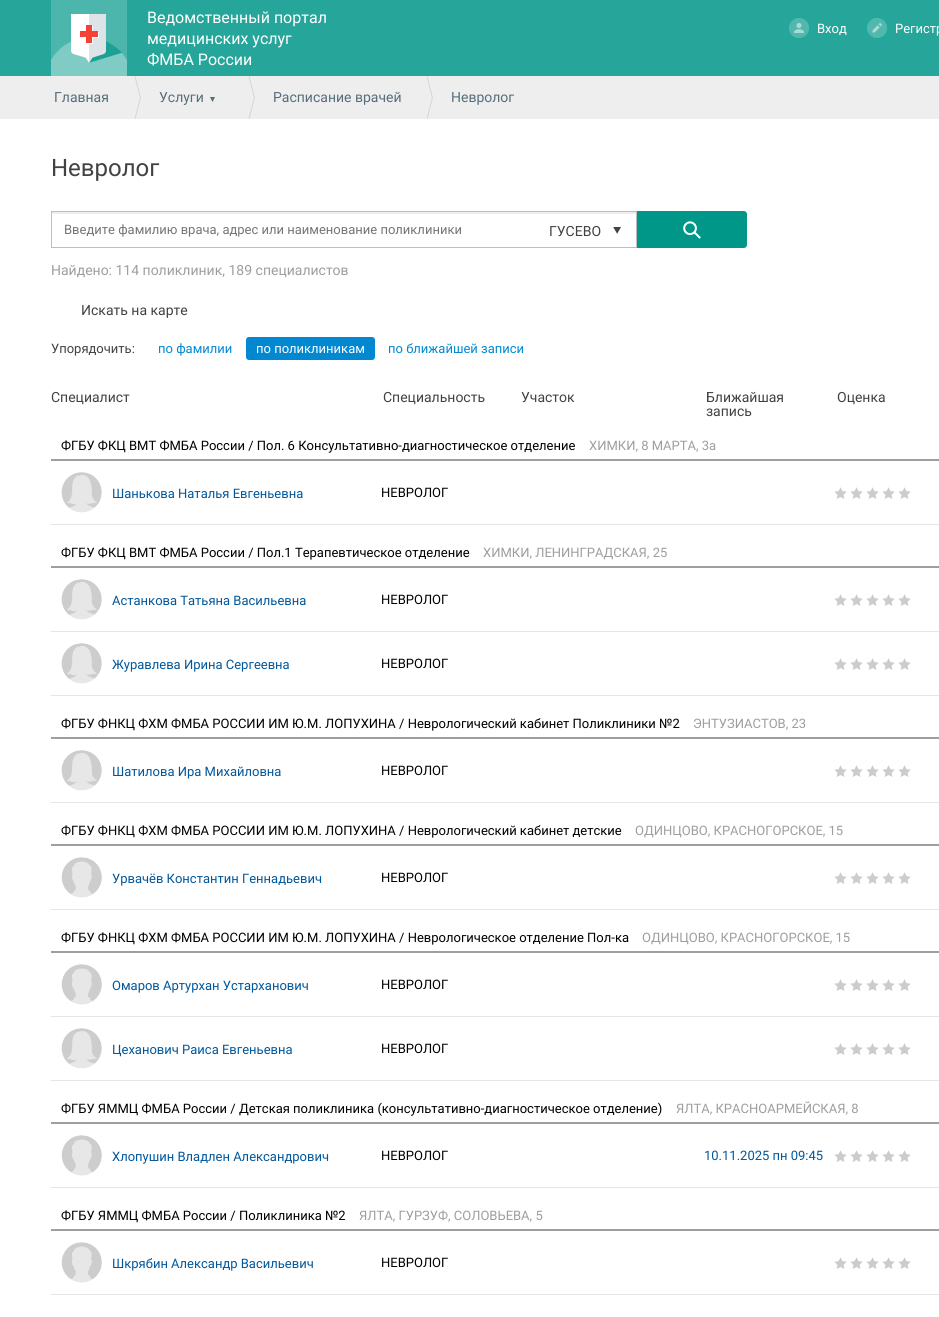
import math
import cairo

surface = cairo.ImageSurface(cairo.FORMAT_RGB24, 939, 1317)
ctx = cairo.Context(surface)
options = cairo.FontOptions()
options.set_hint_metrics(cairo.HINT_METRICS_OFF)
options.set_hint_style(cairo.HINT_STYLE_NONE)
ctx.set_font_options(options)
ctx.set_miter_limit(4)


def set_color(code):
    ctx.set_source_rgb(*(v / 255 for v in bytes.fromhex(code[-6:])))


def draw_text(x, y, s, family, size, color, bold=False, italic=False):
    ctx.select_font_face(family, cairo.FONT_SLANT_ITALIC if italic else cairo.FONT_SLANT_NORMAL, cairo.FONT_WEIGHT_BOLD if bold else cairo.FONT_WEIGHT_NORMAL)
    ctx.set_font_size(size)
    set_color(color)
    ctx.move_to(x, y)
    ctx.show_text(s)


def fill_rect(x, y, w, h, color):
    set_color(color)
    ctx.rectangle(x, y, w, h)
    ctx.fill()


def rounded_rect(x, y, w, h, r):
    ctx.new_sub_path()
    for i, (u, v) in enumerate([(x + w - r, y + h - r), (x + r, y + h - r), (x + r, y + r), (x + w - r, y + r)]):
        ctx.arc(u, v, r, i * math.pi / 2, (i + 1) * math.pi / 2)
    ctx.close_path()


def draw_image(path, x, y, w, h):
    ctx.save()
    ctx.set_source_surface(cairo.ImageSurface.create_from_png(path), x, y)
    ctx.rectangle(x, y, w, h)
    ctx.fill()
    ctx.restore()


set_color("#ffffff")
ctx.paint()
fill_rect(0, 0, 939, 76, "#26a69a")
draw_image("assets/img1.png", 51, 0, 76, 76)
draw_text(147, 23, "Ведомственный портал", "Roboto", 16, "#ffffff")
draw_text(147, 44, "медицинских услуг", "Roboto", 16, "#ffffff")
draw_text(147, 65, "ФМБА России", "Roboto", 16, "#ffffff")
draw_image("assets/img2.png", 789, 18, 20, 20)
draw_text(817, 33, "Вход", "Roboto", 13, "#ffffff")
draw_image("assets/img3.png", 867, 18, 20, 20)
draw_text(895, 33, "Регистр", "Roboto", 13, "#ffffff")
fill_rect(0, 76, 939, 43, "#eeeeee")
draw_text(54, 102, "Главная", "Roboto", 14, "#546e7a")
draw_image("assets/img4.png", 134, 76, 7, 43)
draw_text(159, 102, "Услуги", "Roboto", 14, "#546e7a")
draw_image("assets/img5.png", 210, 97, 5, 5)
draw_image("assets/img4.png", 248, 76, 7, 43)
draw_text(273, 102, "Расписание врачей", "Roboto", 14, "#546e7a")
draw_image("assets/img4.png", 426, 76, 7, 43)
draw_text(451, 102, "Невролог", "Roboto", 14, "#546e7a")
draw_text(51, 176, "Невролог", "Roboto", 24, "#424242")
fill_rect(52, 212, 584, 2, "#eeeeee")
ctx.rectangle(51.5, 211.5, 585, 36)
set_color("#bdbdbd")
ctx.set_line_width(1)
ctx.stroke()
draw_text(64, 234, "Введите фамилию врача, адрес или наименование поликлиники", "Roboto", 13, "#757575")
draw_text(549, 236, "ГУСЕВО", "Roboto", 14, "#424242")
draw_image("assets/img6.png", 613, 227, 8, 7)
set_color("#009688")
ctx.new_path()
ctx.move_to(637, 211)
ctx.line_to(744, 211)
ctx.curve_to(745.5, 211, 747, 212.5, 747, 214)
ctx.line_to(747, 245)
ctx.curve_to(747, 246.5, 745.5, 248, 744, 248)
ctx.line_to(637, 248)
ctx.close_path()
ctx.fill()
draw_image("assets/img7.png", 683, 221, 18, 18)
draw_text(51, 275, "Найдено: 114 поликлиник, 189 специалистов", "Roboto", 14, "#9e9e9e")
draw_text(81, 315, "Искать на карте", "Roboto", 14, "#424242")
draw_text(51, 353, "Упорядочить:", "Roboto", 13, "#424242")
draw_text(158, 353, "по фамилии", "Roboto", 13, "#0288d1")
rounded_rect(246, 337, 129, 23, 3)
ctx.fill()
draw_text(256, 353, "по поликлиникам", "Roboto", 13, "#ffffff")
draw_text(388, 353, "по ближайшей записи", "Roboto", 13, "#0288d1")
draw_text(51, 402, "Специалист", "Roboto", 14, "#424242")
draw_text(383, 402, "Специальность", "Roboto", 14, "#424242")
draw_text(521, 402, "Участок", "Roboto", 14, "#424242")
draw_text(706, 402, "Ближайшая", "Roboto", 14, "#424242")
draw_text(706, 416, "запись", "Roboto", 14, "#424242")
draw_text(837, 402, "Оценка", "Roboto", 14, "#424242")
fill_rect(51, 459, 888, 2, "#9e9e9e")
draw_text(61, 450, "ФГБУ ФКЦ ВМТ ФМБА России / Пол. 6 Консультативно-диагностическое отделение", "Roboto", 13, "#000000")
draw_text(589, 450, "ХИМКИ, 8 МАРТА, 3а", "Roboto", 13, "#9e9e9e")
fill_rect(51, 524, 888, 1, "#e6e6e6")
draw_image("assets/img8.png", 61, 472, 41, 41)
draw_text(112, 498, "Шанькова Наталья Евгеньевна", "Roboto", 13, "#01579b")
draw_text(381, 497, "НЕВРОЛОГ", "Roboto", 13, "#000000")
draw_image("assets/img9.png", 834, 487, 77, 12)
fill_rect(51, 566, 888, 2, "#9e9e9e")
draw_text(61, 557, "ФГБУ ФКЦ ВМТ ФМБА России / Пол.1 Терапевтическое отделение", "Roboto", 13, "#000000")
draw_text(483, 557, "ХИМКИ, ЛЕНИНГРАДСКАЯ, 25", "Roboto", 13, "#9e9e9e")
fill_rect(51, 631, 888, 1, "#e6e6e6")
draw_image("assets/img10.png", 61, 579, 41, 41)
draw_text(112, 605, "Астанкова Татьяна Васильевна", "Roboto", 13, "#01579b")
draw_text(381, 604, "НЕВРОЛОГ", "Roboto", 13, "#000000")
draw_image("assets/img9.png", 834, 594, 77, 12)
fill_rect(51, 695, 888, 1, "#e6e6e6")
draw_image("assets/img10.png", 61, 643, 41, 41)
draw_text(112, 669, "Журавлева Ирина Сергеевна", "Roboto", 13, "#01579b")
draw_text(381, 668, "НЕВРОЛОГ", "Roboto", 13, "#000000")
draw_image("assets/img9.png", 834, 658, 77, 12)
fill_rect(51, 737, 888, 2, "#9e9e9e")
draw_text(61, 728, "ФГБУ ФНКЦ ФХМ ФМБА РОССИИ ИМ Ю.М. ЛОПУХИНА / Неврологический кабинет Поликлиники №2", "Roboto", 13, "#000000")
draw_text(693, 728, "ЭНТУЗИАСТОВ, 23", "Roboto", 13, "#9e9e9e")
fill_rect(51, 802, 888, 1, "#e6e6e6")
draw_image("assets/img11.png", 61, 750, 41, 41)
draw_text(112, 776, "Шатилова Ира Михайловна", "Roboto", 13, "#01579b")
draw_text(381, 775, "НЕВРОЛОГ", "Roboto", 13, "#000000")
draw_image("assets/img9.png", 834, 765, 77, 12)
fill_rect(51, 844, 888, 2, "#9e9e9e")
draw_text(61, 835, "ФГБУ ФНКЦ ФХМ ФМБА РОССИИ ИМ Ю.М. ЛОПУХИНА / Неврологический кабинет детские", "Roboto", 13, "#000000")
draw_text(635, 835, "ОДИНЦОВО, КРАСНОГОРСКОЕ, 15", "Roboto", 13, "#9e9e9e")
fill_rect(51, 909, 888, 1, "#e6e6e6")
draw_image("assets/img12.png", 61, 857, 41, 41)
draw_text(112, 883, "Урвачёв Константин Геннадьевич", "Roboto", 13, "#01579b")
draw_text(381, 882, "НЕВРОЛОГ", "Roboto", 13, "#000000")
draw_image("assets/img9.png", 834, 872, 77, 12)
fill_rect(51, 951, 888, 2, "#9e9e9e")
draw_text(61, 942, "ФГБУ ФНКЦ ФХМ ФМБА РОССИИ ИМ Ю.М. ЛОПУХИНА / Неврологическое отделение Пол-ка", "Roboto", 13, "#000000")
draw_text(642, 942, "ОДИНЦОВО, КРАСНОГОРСКОЕ, 15", "Roboto", 13, "#9e9e9e")
fill_rect(51, 1016, 888, 1, "#e6e6e6")
draw_image("assets/img12.png", 61, 964, 41, 41)
draw_text(112, 990, "Омаров Артурхан Устарханович", "Roboto", 13, "#01579b")
draw_text(381, 989, "НЕВРОЛОГ", "Roboto", 13, "#000000")
draw_image("assets/img9.png", 834, 979, 77, 12)
fill_rect(51, 1080, 888, 1, "#e6e6e6")
draw_image("assets/img10.png", 61, 1028, 41, 41)
draw_text(112, 1054, "Цеханович Раиса Евгеньевна", "Roboto", 13, "#01579b")
draw_text(381, 1053, "НЕВРОЛОГ", "Roboto", 13, "#000000")
draw_image("assets/img9.png", 834, 1043, 77, 12)
fill_rect(51, 1122, 888, 2, "#9e9e9e")
draw_text(61, 1113, "ФГБУ ЯММЦ ФМБА России / Детская поликлиника (консультативно-диагностическое отделение)", "Roboto", 13, "#000000")
draw_text(676, 1113, "ЯЛТА, КРАСНОАРМЕЙСКАЯ, 8", "Roboto", 13, "#9e9e9e")
fill_rect(51, 1187, 888, 1, "#e6e6e6")
draw_image("assets/img12.png", 61, 1135, 41, 41)
draw_text(112, 1161, "Хлопушин Владлен Александрович", "Roboto", 13, "#01579b")
draw_text(381, 1160, "НЕВРОЛОГ", "Roboto", 13, "#000000")
draw_text(704, 1160, "10.11.2025 пн 09:45", "Roboto", 13, "#01579b")
draw_image("assets/img9.png", 834, 1150, 77, 12)
fill_rect(51, 1229, 888, 2, "#9e9e9e")
draw_text(61, 1220, "ФГБУ ЯММЦ ФМБА России / Поликлиника №2", "Roboto", 13, "#000000")
draw_text(359, 1220, "ЯЛТА, ГУРЗУФ, СОЛОВЬЕВА, 5", "Roboto", 13, "#9e9e9e")
fill_rect(51, 1294, 888, 1, "#e6e6e6")
draw_image("assets/img12.png", 61, 1242, 41, 41)
draw_text(112, 1268, "Шкрябин Александр Васильевич", "Roboto", 13, "#01579b")
draw_text(381, 1267, "НЕВРОЛОГ", "Roboto", 13, "#000000")
draw_image("assets/img9.png", 834, 1257, 77, 12)
surface.write_to_png("output.png")
